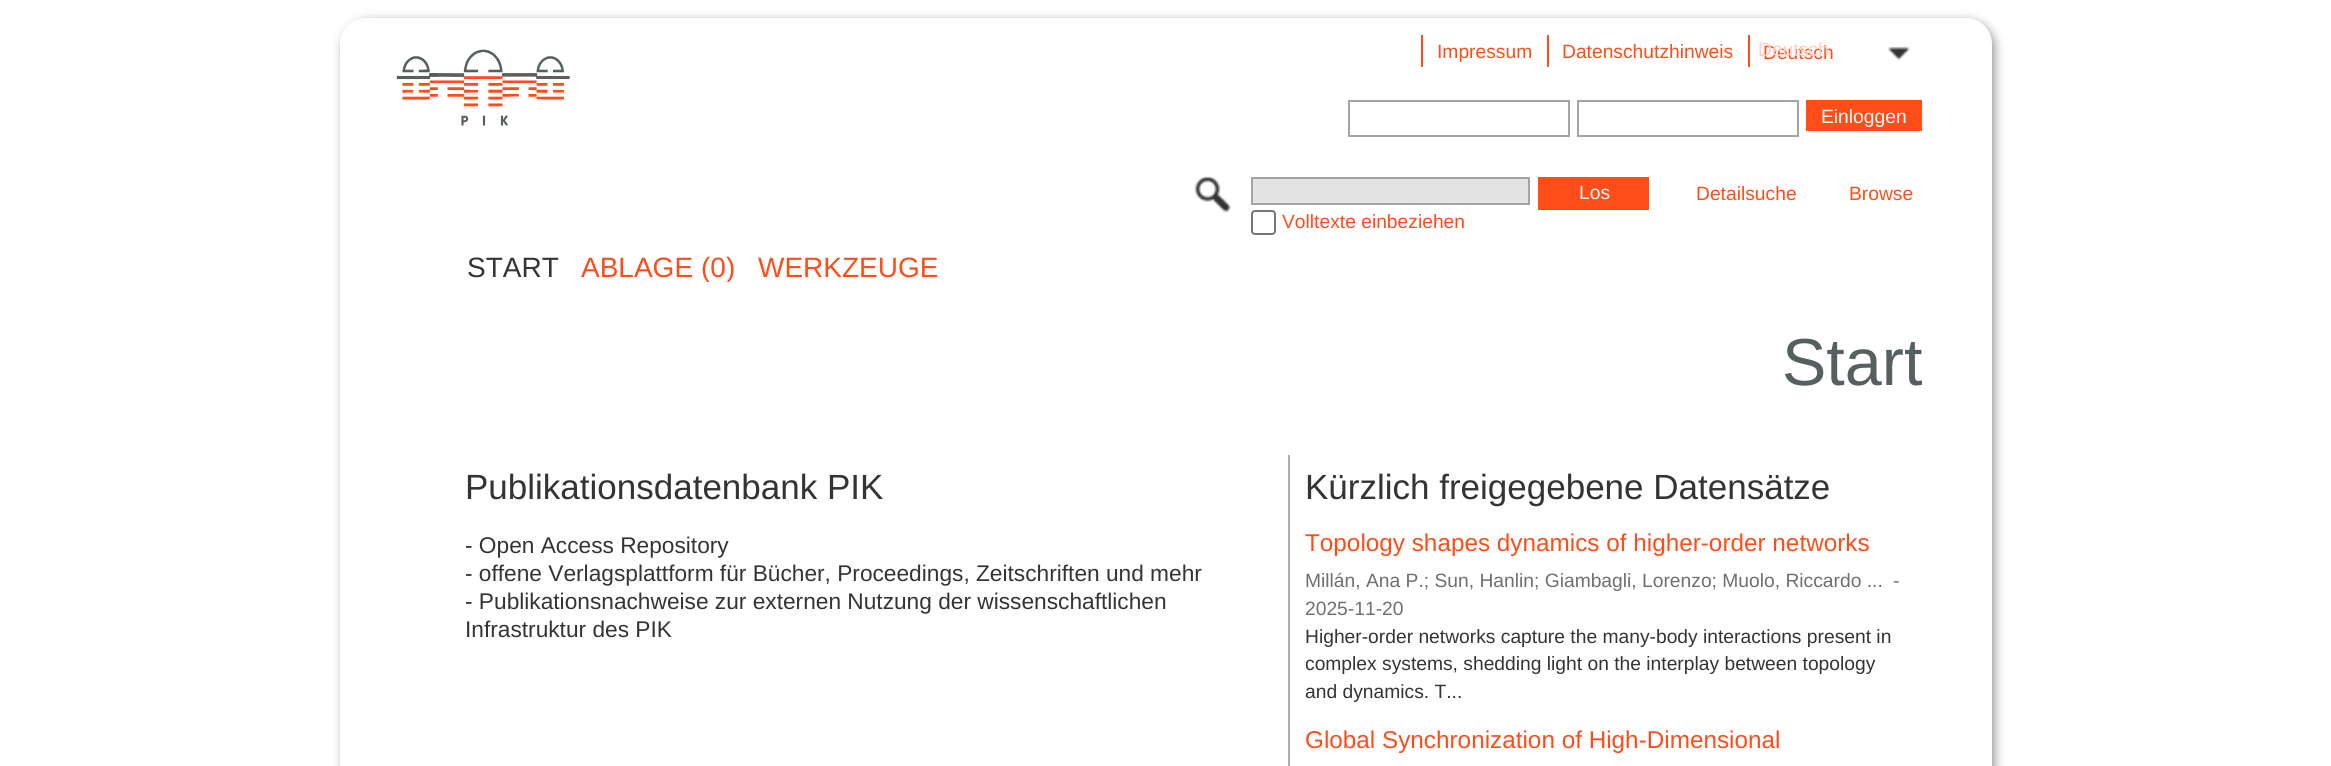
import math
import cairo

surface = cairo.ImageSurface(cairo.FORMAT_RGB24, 2331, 766)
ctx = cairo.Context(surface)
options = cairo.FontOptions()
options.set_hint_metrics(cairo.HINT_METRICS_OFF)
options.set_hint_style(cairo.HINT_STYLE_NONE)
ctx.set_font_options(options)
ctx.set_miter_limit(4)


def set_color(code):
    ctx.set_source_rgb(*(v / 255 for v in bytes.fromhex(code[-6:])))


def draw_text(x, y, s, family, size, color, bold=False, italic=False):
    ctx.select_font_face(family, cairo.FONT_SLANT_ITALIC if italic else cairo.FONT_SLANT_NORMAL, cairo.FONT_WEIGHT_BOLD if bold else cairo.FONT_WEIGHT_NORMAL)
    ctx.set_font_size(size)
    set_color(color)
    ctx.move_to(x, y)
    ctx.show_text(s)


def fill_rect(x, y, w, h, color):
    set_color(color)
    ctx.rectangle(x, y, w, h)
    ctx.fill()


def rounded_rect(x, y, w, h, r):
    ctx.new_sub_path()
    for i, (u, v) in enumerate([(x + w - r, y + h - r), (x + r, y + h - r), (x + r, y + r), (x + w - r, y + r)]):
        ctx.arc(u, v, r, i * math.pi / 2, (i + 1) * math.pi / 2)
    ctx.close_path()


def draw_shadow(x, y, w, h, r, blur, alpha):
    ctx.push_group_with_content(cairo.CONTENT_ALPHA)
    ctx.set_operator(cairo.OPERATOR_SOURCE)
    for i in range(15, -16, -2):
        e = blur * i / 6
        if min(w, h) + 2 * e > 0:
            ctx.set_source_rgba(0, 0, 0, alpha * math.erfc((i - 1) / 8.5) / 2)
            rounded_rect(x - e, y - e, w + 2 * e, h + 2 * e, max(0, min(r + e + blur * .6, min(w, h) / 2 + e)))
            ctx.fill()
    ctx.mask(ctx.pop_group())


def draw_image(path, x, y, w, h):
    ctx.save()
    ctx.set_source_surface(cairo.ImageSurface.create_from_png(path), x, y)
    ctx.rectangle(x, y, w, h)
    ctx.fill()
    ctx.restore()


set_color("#ffffff")
ctx.paint()
set_color("#999999")
draw_shadow(343, 21, 1652, 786, 26, 5, 1)
set_color("#ffffff")
rounded_rect(340, 18, 1652, 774, 26)
ctx.fill()
fill_rect(1421, 35, 2, 32, "#ff4d19")
draw_text(1437, 58, "Impressum", "Liberation Sans", 19.25, "#ff4d19")
fill_rect(1547, 35, 2, 32, "#ff4d19")
draw_text(1562, 58, "Datenschutzhinweis", "Liberation Sans", 19.25, "#ff4d19")
fill_rect(1748, 35, 2, 32, "#ff4d19")
draw_text(1763, 59, "Deutsch", "Liberation Sans", 19.25, "#ff4d19")
draw_text(1758, 56, "Deutsch", "Liberation Sans", 19.25, "#ffd1c4")
draw_image("assets/img1.png", 1888, 46, 22, 14)
ctx.rectangle(1349, 101, 220, 35)
set_color("#a4a4a4")
ctx.stroke()
ctx.rectangle(1578, 101, 220, 35)
ctx.stroke()
fill_rect(1806, 100, 116, 31, "#ff4d19")
draw_text(1821, 123, "Einloggen", "Liberation Sans", 19.25, "#ffffff")
draw_image("assets/img2.png", 396, 49, 174, 77)
draw_image("assets/img3.png", 1194, 176, 37, 37)
fill_rect(1538, 177, 111, 33, "#ff4d19")
draw_text(1579, 199, "Los", "Liberation Sans", 19.25, "#ffffff")
draw_text(1696, 200, "Detailsuche", "Liberation Sans", 19.25, "#ff4d19")
draw_text(1849, 200, "Browse", "Liberation Sans", 19.25, "#ff4d19")
set_color("#e3e3e3")
ctx.rectangle(1252, 178, 277, 26)
ctx.fill_preserve()
set_color("#a4a4a4")
ctx.stroke()
rounded_rect(1252, 211, 23, 23, 3)
set_color("#767676")
ctx.stroke()
draw_text(1282, 228, "Volltexte einbeziehen", "Liberation Sans", 19.25, "#ff4d19")
draw_text(467, 277, "START", "Liberation Sans", 28, "#343434")
draw_text(581, 277, "ABLAGE", "Liberation Sans", 28, "#ff4d19")
ctx.save()
ctx.rectangle(581, 254, 154, 28)
ctx.clip()
draw_text(701, 277, "(0)", "Liberation Sans", 28, "#ff4d19")
ctx.restore()
draw_text(758, 277, "WERKZEUGE", "Liberation Sans", 28, "#ff4d19")
draw_text(1782, 385, "Start", "Liberation Sans", 66.5, "#566060")
draw_text(465, 499, "Publikationsdatenbank PIK", "Liberation Sans", 35, "#343434")
draw_text(465, 553, "- Open Access Repository", "Liberation Sans", 22.7, "#343434")
draw_text(465, 581, "- offene Verlagsplattform für Bücher, Proceedings, Zeitschriften und mehr", "Liberation Sans", 22.7, "#343434")
draw_text(465, 609, "- Publikationsnachweise zur externen Nutzung der wissenschaftlichen", "Liberation Sans", 22.7, "#343434")
draw_text(465, 637, "Infrastruktur des PIK", "Liberation Sans", 22.7, "#343434")
fill_rect(1288, 455, 2, 311, "#aeaeae")
draw_text(1305, 499, "Kürzlich freigegebene Datensätze", "Liberation Sans", 35, "#343434")
draw_text(1305, 551, "Topology shapes dynamics of higher-order networks", "Liberation Sans", 24.3, "#ff4d19")
draw_text(1305, 587, "Millán, Ana P.; Sun, Hanlin; Giambagli, Lorenzo; Muolo, Riccardo ...", "Liberation Sans", 19.25, "#6f6f6f")
draw_text(1893, 587, "-", "Liberation Sans", 19.25, "#6f6f6f")
draw_text(1305, 615, "2025-11-20", "Liberation Sans", 19.25, "#6f6f6f")
draw_text(1305, 643, "Higher-order networks capture the many-body interactions present in", "Liberation Sans", 19.25, "#343434")
draw_text(1305, 670, "complex systems, shedding light on the interplay between topology", "Liberation Sans", 19.25, "#343434")
draw_text(1305, 698, "and dynamics. T...", "Liberation Sans", 19.25, "#343434")
draw_text(1305, 748, "Global Synchronization of High-Dimensional", "Liberation Sans", 24.3, "#ff4d19")
surface.write_to_png("output.png")
